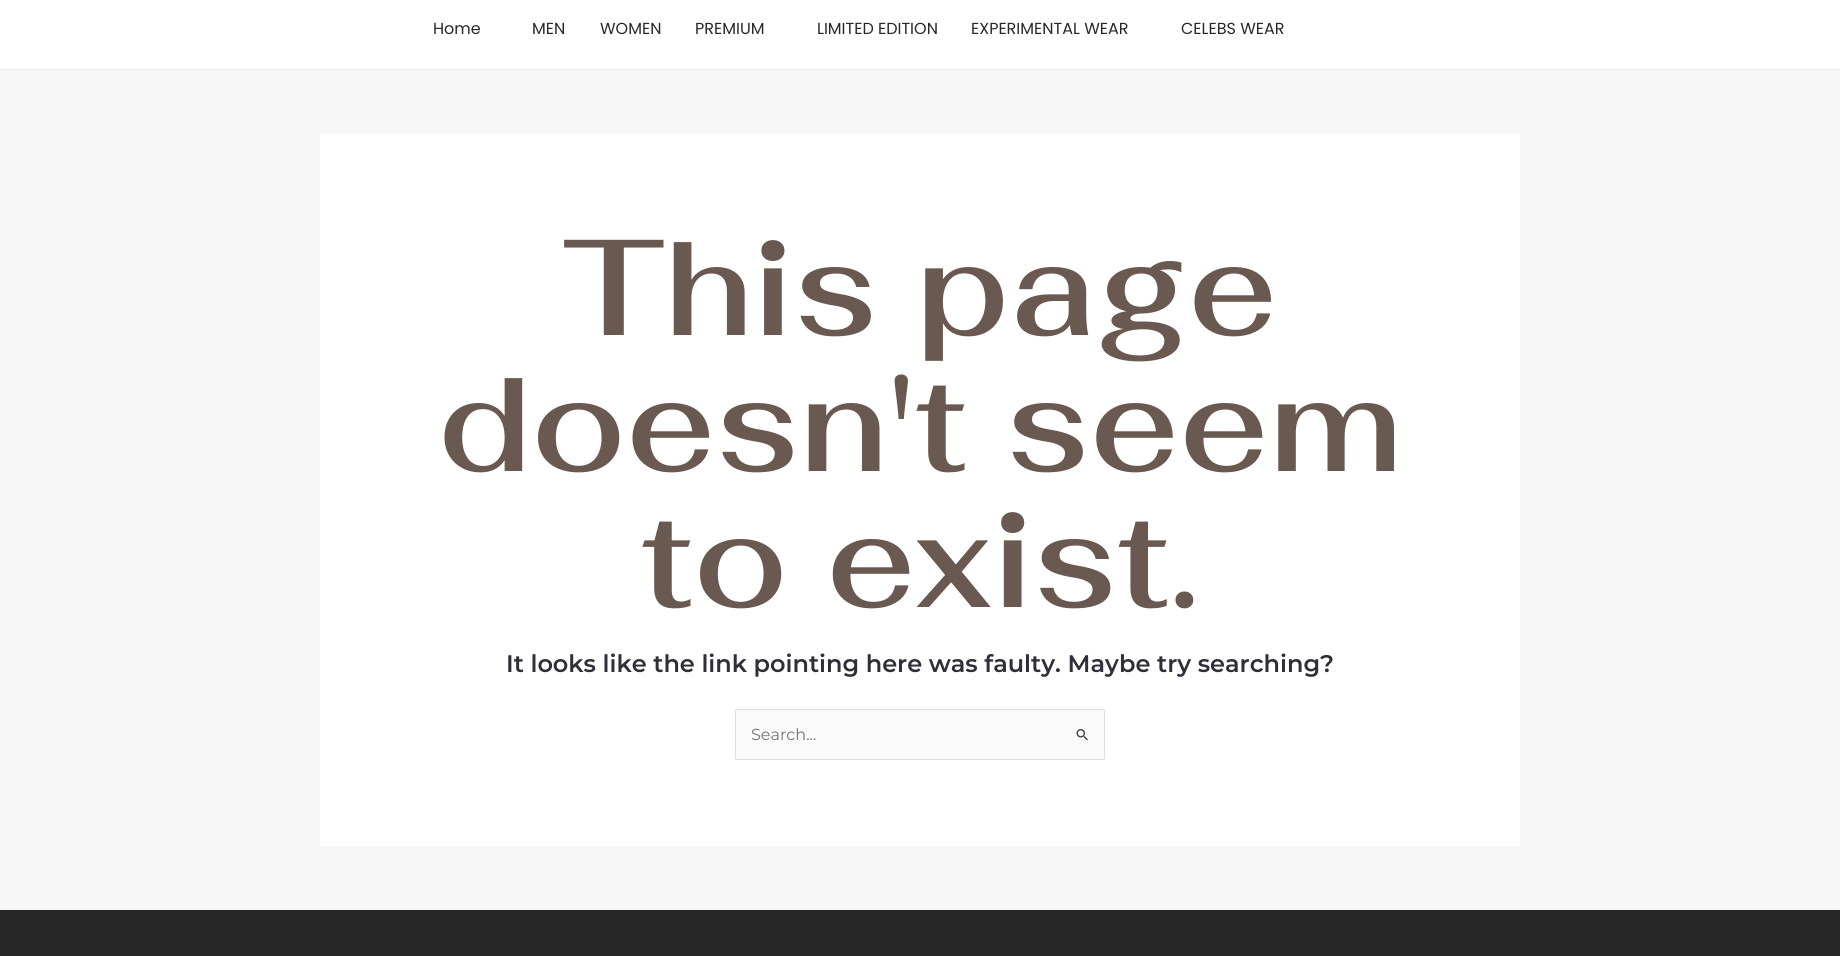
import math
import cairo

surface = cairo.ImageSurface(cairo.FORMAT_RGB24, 1840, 956)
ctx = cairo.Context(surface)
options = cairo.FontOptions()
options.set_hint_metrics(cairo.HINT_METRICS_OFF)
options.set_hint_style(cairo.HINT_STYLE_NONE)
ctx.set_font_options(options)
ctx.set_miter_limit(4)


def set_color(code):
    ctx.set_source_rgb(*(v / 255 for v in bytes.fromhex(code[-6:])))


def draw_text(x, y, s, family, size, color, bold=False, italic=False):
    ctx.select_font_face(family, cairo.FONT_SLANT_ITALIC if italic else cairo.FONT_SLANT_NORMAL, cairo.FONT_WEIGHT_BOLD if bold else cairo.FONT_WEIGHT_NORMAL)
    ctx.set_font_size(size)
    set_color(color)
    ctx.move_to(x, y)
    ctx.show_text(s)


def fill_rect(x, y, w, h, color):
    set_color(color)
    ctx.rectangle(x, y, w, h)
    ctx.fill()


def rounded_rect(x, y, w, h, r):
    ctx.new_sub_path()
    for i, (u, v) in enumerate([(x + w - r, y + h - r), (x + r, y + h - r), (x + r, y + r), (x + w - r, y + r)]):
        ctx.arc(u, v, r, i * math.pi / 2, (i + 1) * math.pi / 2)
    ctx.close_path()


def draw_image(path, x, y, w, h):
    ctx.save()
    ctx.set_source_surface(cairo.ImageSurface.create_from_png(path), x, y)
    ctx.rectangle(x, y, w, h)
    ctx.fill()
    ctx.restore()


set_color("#f7f7f7")
ctx.paint()
fill_rect(0, 0, 1840, 69, "#ffffff")
fill_rect(0, 69, 1840, 1, "#eaeaea")
draw_text(433, 34, "Home", "Poppins", 16, "#272727")
draw_text(532, 34, "MEN", "Poppins", 16, "#272727")
draw_text(600, 34, "WOMEN", "Poppins", 16, "#272727")
draw_text(695, 34, "PREMIUM", "Poppins", 16, "#272727")
draw_text(817, 34, "LIMITED EDITION", "Poppins", 16, "#272727")
draw_text(971, 34, "EXPERIMENTAL WEAR", "Poppins", 16, "#272727")
draw_text(1181, 34, "CELEBS WEAR", "Poppins", 16, "#272727")
fill_rect(320, 134, 1200, 712, "#ffffff")
draw_text(563, 335, "This page", "Fahkwang SemiBold", 136, "#6a5950")
draw_text(438, 471, "doesn't seem", "Fahkwang SemiBold", 136, "#6a5950")
draw_text(641, 607, "to exist.", "Fahkwang SemiBold", 136, "#6a5950")
draw_text(506, 672, "It looks like the link pointing here was faulty. Maybe try searching?", "Montserrat SemiBold", 24, "#312e39")
set_color("#fafafa")
rounded_rect(735.5, 709.5, 369, 50, 1.5)
ctx.fill_preserve()
set_color("#dddddd")
ctx.set_line_width(1)
ctx.stroke()
draw_text(751, 740, "Search...", "Montserrat", 16, "#757575")
draw_image("assets/img1.png", 1076, 729, 12, 12)
fill_rect(0, 910, 1840, 46, "#272727")
surface.write_to_png("output.png")
